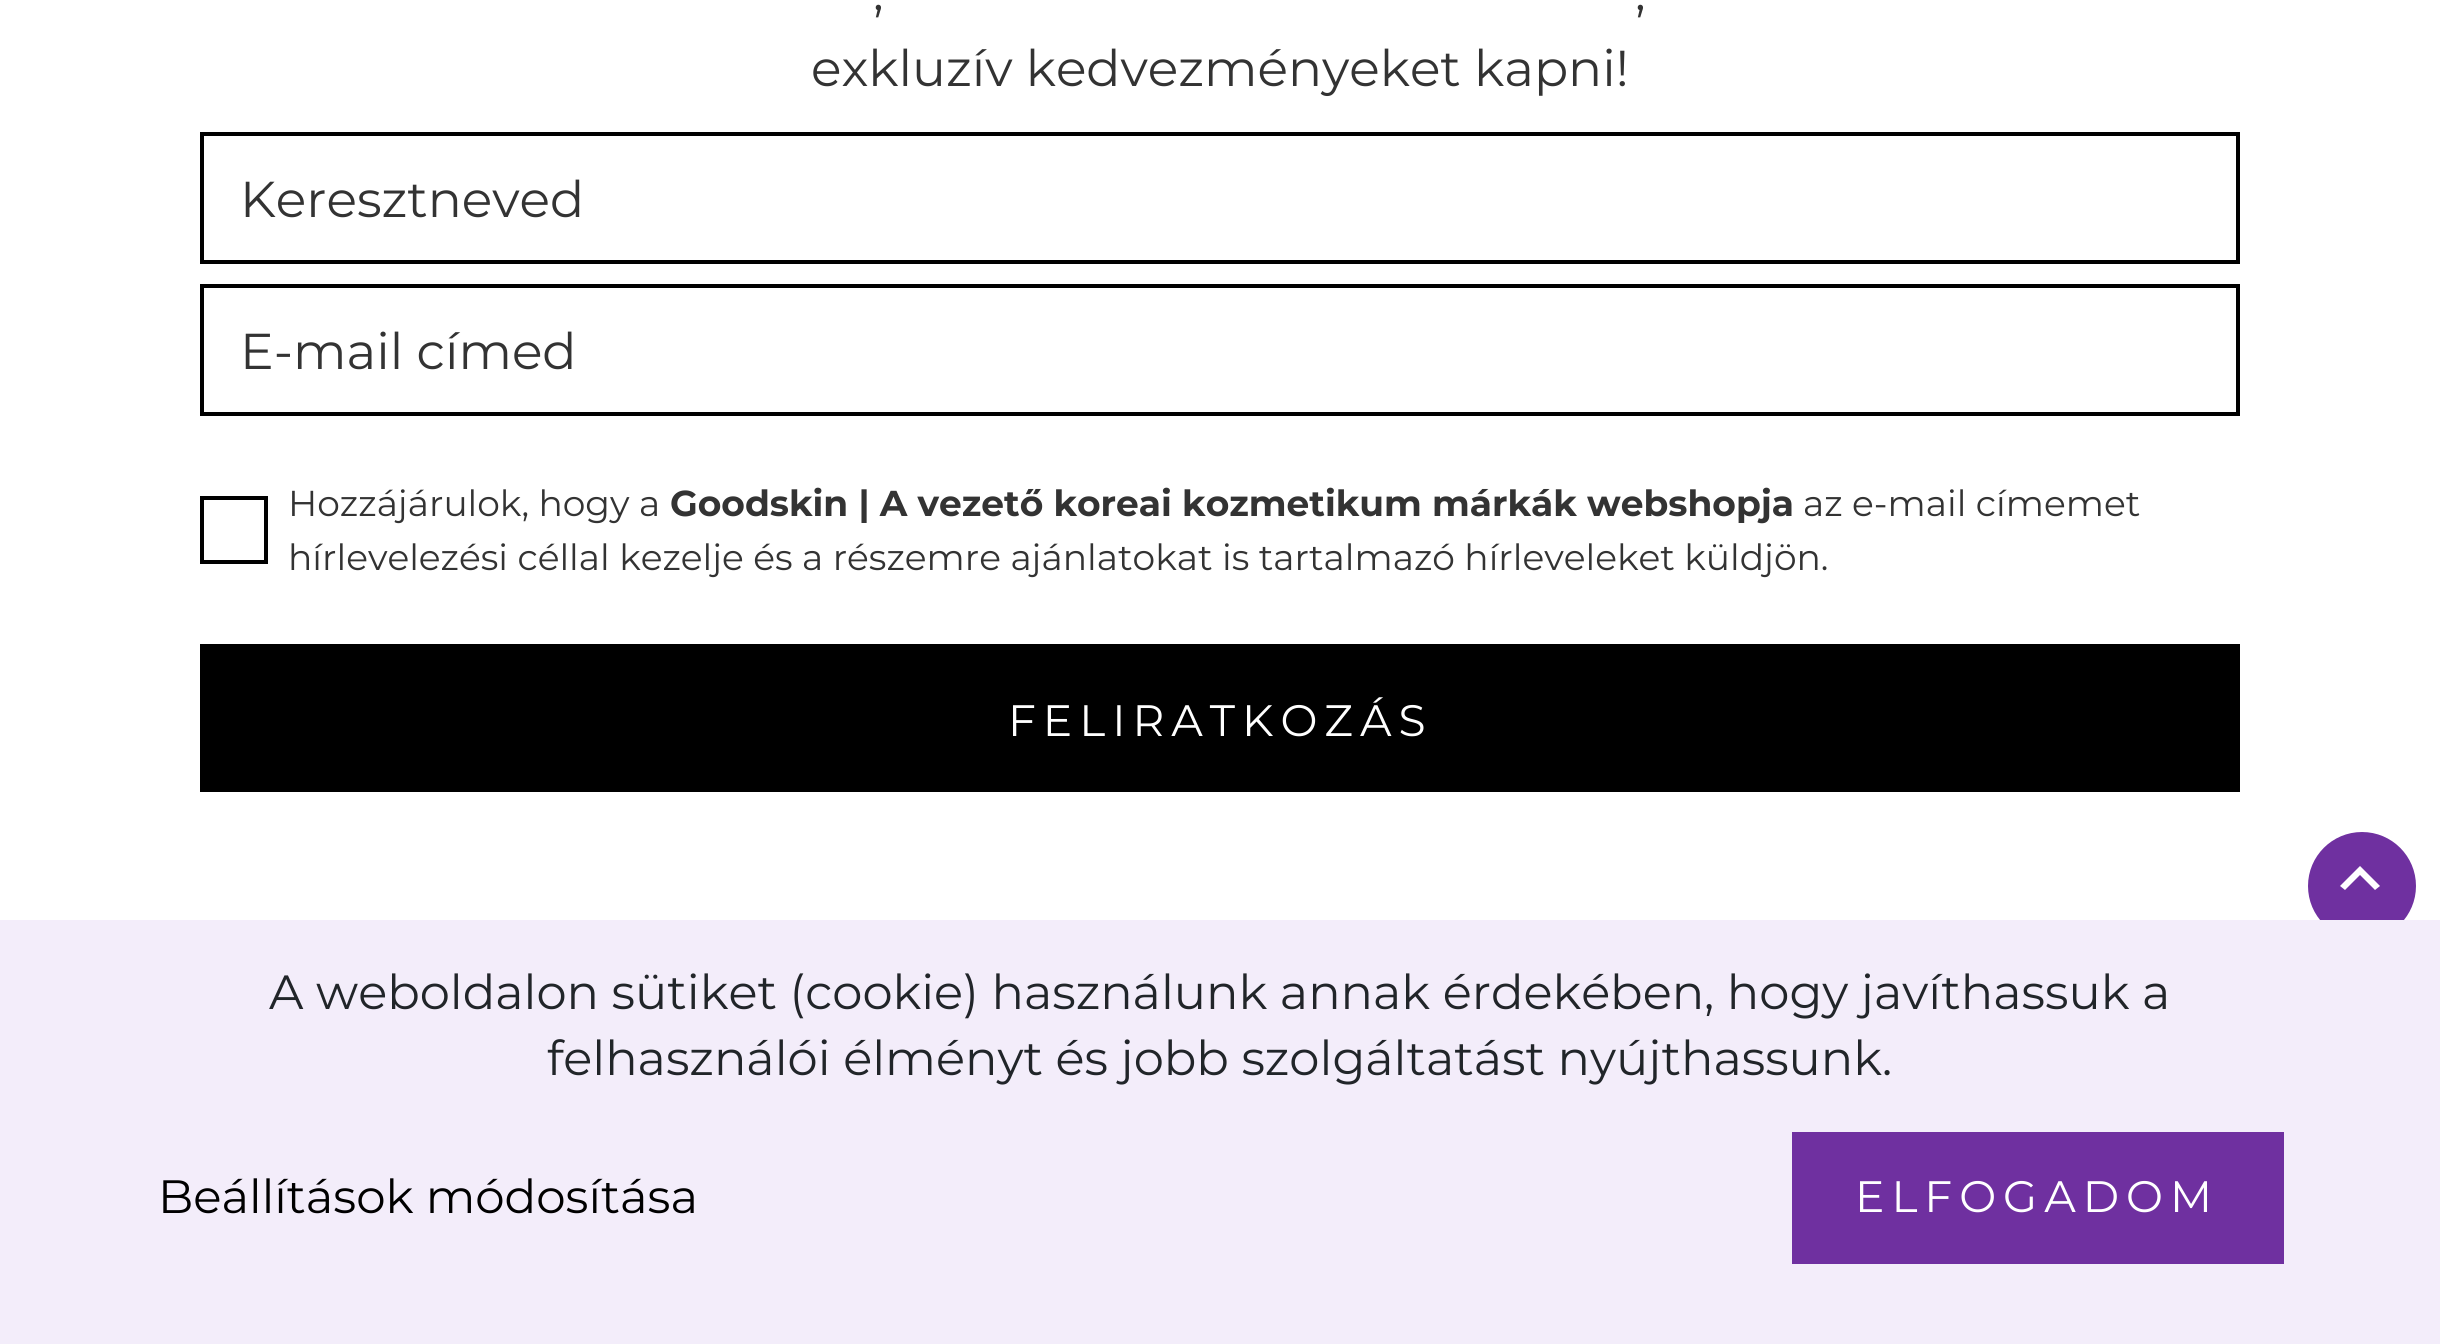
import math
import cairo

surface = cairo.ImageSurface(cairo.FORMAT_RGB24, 2440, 1344)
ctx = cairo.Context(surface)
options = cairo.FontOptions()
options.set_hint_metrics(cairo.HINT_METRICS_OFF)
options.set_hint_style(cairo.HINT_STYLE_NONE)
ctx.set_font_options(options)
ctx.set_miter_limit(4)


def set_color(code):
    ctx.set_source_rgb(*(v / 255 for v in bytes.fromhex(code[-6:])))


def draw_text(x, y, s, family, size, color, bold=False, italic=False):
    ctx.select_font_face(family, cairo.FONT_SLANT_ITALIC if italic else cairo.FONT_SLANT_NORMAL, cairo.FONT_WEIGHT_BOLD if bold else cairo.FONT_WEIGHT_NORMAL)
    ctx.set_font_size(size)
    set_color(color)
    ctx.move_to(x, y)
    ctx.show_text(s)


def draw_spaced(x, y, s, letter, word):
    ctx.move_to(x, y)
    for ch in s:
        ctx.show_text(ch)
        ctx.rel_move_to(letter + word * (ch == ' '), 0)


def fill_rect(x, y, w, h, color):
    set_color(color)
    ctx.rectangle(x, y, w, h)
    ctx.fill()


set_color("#ffffff")
ctx.paint()
draw_text(873, 10, ",", "Montserrat", 50.4, "#333333")
draw_text(1635, 10, ",", "Montserrat", 50.4, "#333333")
draw_text(811, 86, "exkluzív kedvezményeket kapni!", "Montserrat", 50.4, "#333333")
ctx.rectangle(202, 134, 2036, 128)
set_color("#000000")
ctx.set_line_width(4)
ctx.stroke()
draw_text(240, 217, "Keresztneved", "Montserrat", 50.4, "#333333")
ctx.rectangle(202, 286, 2036, 128)
set_color("#000000")
ctx.stroke()
draw_text(240, 369, "E-mail címed", "Montserrat", 50.4, "#333333")
ctx.rectangle(202, 498, 64, 64)
set_color("#000000")
ctx.stroke()
draw_text(288, 516, "Hozzájárulok, hogy a", "Montserrat", 36, "#333333")
draw_text(670, 516, "Goodskin | A vezető koreai kozmetikum márkák webshopja", "Montserrat", 36, "#333333", bold=True)
draw_text(1803, 516, "az e-mail címemet", "Montserrat", 36, "#333333")
draw_text(288, 570, "hírlevelezési céllal kezelje és a részemre ajánlatokat is tartalmazó hírleveleket küldjön.", "Montserrat", 36, "#333333")
fill_rect(200, 644, 2040, 148, "#000000")
ctx.set_font_size(44)
set_color("#ffffff")
draw_spaced(1008, 736, "FELIRATKOZÁS", 7, 0)
set_color("#6f30a0")
ctx.new_path()
ctx.arc(2362, 886, 54, 0, 2 * math.pi)
ctx.fill()
set_color("#ffffff")
ctx.new_path()
ctx.move_to(2340, 886)
ctx.line_to(2345, 890)
ctx.line_to(2360, 875)
ctx.line_to(2375, 890)
ctx.line_to(2380, 886)
ctx.line_to(2360, 866)
ctx.close_path()
ctx.fill()
fill_rect(0, 920, 2440, 424, "#f3edfa")
draw_text(269, 1009, "A weboldalon sütiket (cookie) használunk annak érdekében, hogy javíthassuk a", "Montserrat", 48, "#212529")
draw_text(547, 1075, "felhasználói élményt és jobb szolgáltatást nyújthassunk.", "Montserrat", 48, "#212529")
draw_text(158, 1213, "Beállítások módosítása", "Montserrat", 46.75, "#000000")
fill_rect(1792, 1132, 492, 132, "#6f30a0")
ctx.set_font_size(44)
set_color("#ffffff")
draw_spaced(1855, 1212, "ELFOGADOM", 7, 0)
surface.write_to_png("output.png")
